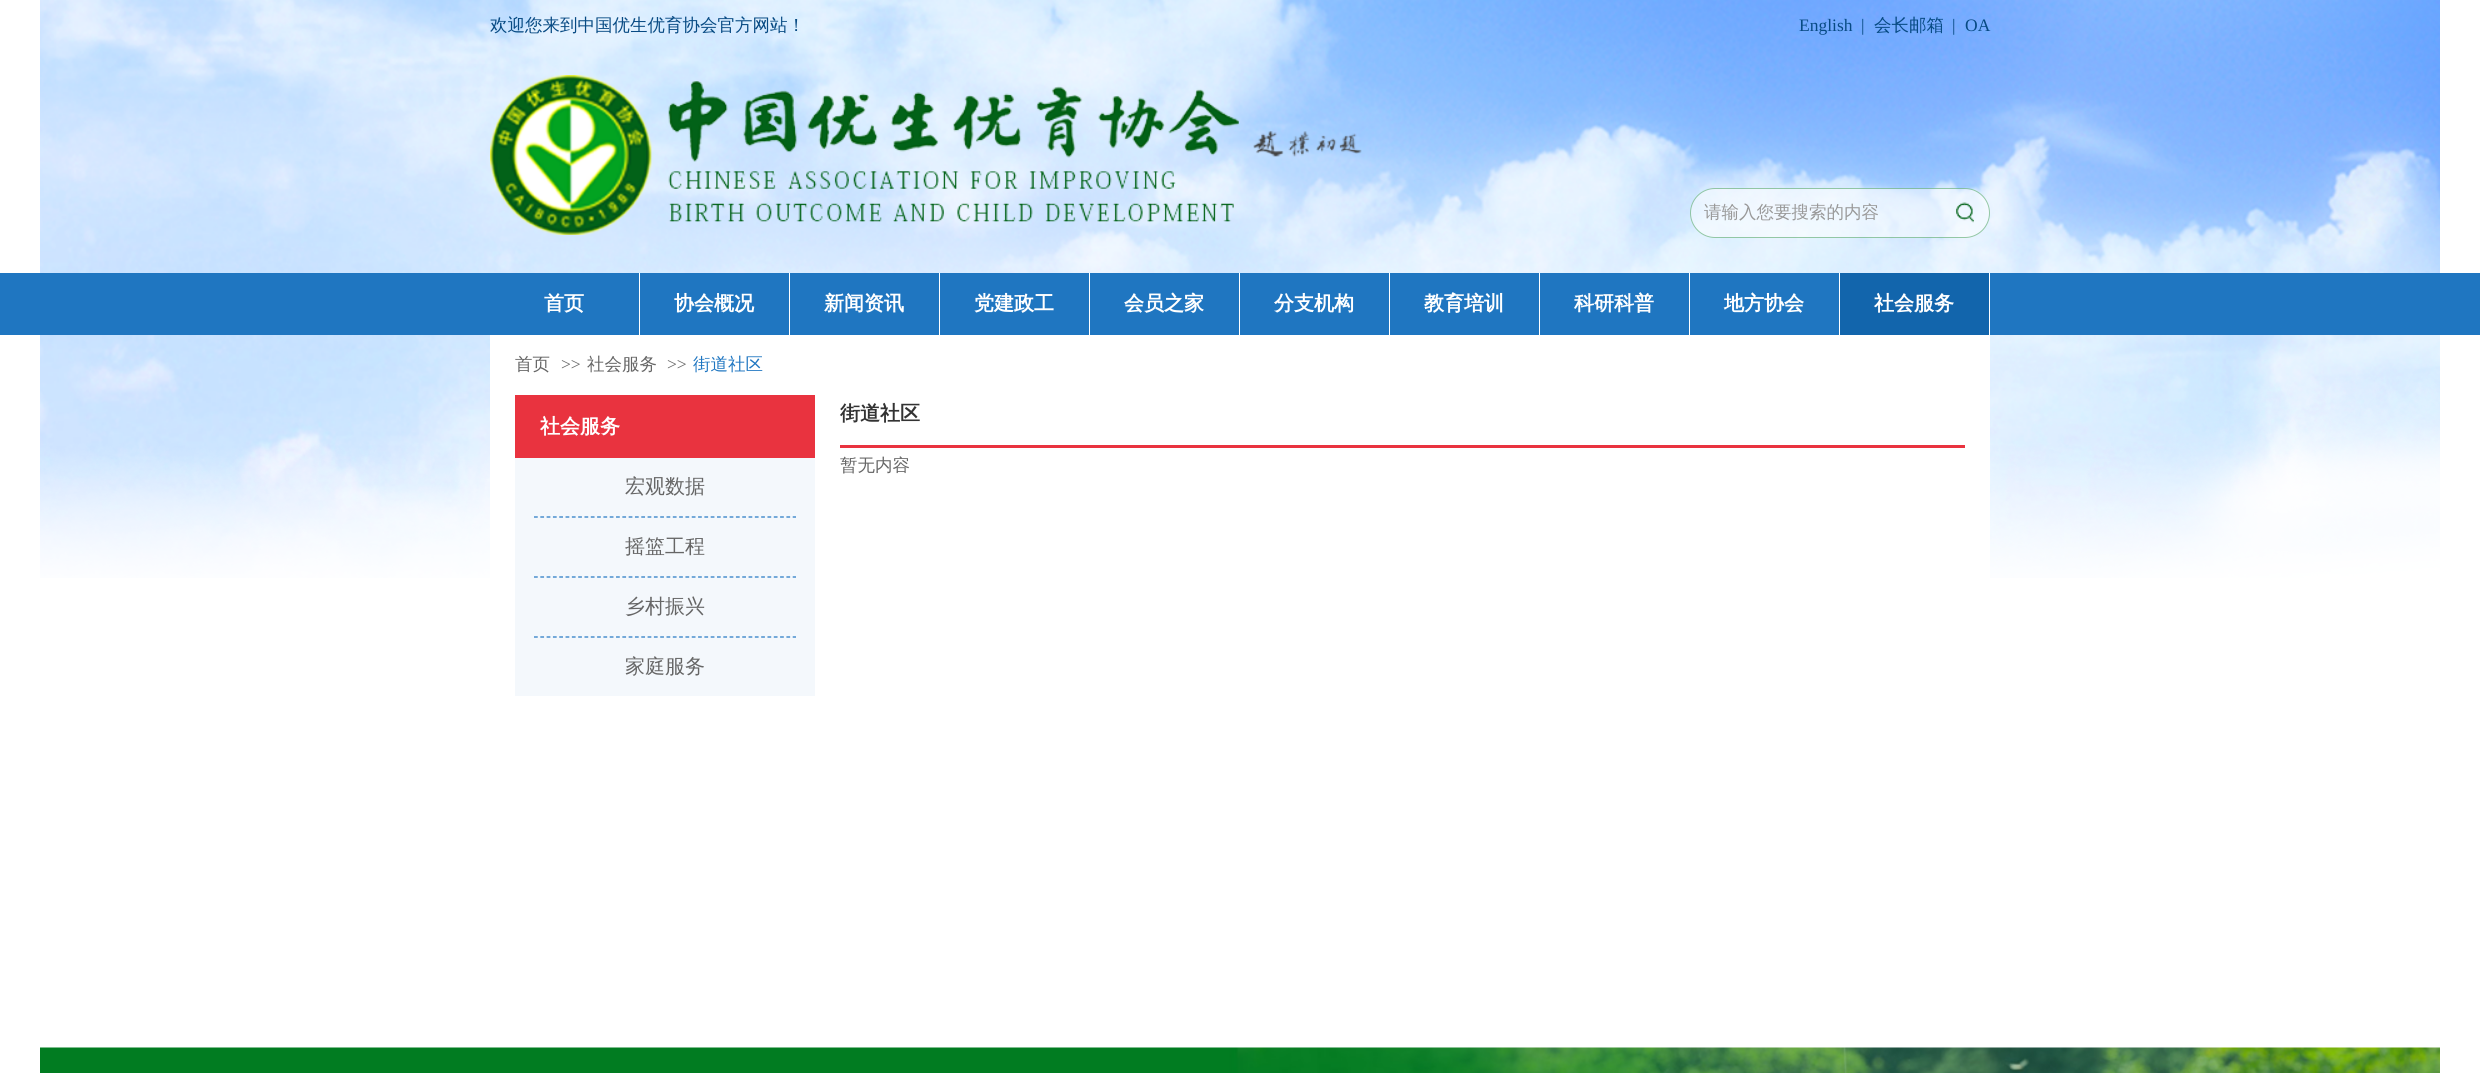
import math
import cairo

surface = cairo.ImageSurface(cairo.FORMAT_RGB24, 2480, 1073)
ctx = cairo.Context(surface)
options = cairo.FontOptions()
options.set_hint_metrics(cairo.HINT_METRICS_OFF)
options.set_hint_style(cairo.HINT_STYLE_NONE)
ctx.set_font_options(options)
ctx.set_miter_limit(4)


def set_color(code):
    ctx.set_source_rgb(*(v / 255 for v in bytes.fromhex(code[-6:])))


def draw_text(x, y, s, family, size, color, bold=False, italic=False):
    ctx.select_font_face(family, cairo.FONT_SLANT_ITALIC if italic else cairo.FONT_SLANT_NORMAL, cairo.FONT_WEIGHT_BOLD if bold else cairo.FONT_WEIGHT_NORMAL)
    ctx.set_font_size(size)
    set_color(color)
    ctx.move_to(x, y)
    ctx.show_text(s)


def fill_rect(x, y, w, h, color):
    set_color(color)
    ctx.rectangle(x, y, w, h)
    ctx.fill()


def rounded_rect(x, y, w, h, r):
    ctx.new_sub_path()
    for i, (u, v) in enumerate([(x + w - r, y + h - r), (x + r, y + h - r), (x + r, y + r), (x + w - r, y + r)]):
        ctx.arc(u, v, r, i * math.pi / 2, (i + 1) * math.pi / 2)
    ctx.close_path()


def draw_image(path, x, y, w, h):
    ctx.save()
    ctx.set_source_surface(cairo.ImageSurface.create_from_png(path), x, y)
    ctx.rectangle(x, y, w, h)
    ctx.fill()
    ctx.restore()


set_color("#ffffff")
ctx.paint()
draw_image("assets/img1.png", 40, 0, 2400, 578)
draw_text(490, 31, "欢迎您来到中国优生优育协会官方网站！", "WenQuanYi Zen Hei Medium", 17.5, "#074a83")
draw_text(1799, 31, "English", "Liberation Serif", 17.5, "#074a83")
draw_text(1861, 31, "|", "Liberation Serif", 17.5, "#074a83")
draw_text(1874, 31, "会长邮箱", "WenQuanYi Zen Hei Medium", 17.5, "#074a83")
draw_text(1952, 31, "|", "Liberation Serif", 17.5, "#074a83")
draw_text(1965, 31, "OA", "Liberation Serif", 17.5, "#074a83")
draw_image("assets/img2.png", 490, 75, 872, 160)
ctx.set_source_rgba(1, 1, 1, 0.5)
rounded_rect(1690, 188, 300, 50, 25)
ctx.fill()
rounded_rect(1690.5, 188.5, 299, 49, 24.5)
ctx.set_source_rgba(0.204, 0.588, 0.302, 0.5)
ctx.set_line_width(1)
ctx.stroke()
draw_text(1704, 218, "请输入您要搜索的内容", "WenQuanYi Zen Hei Medium", 17.5, "#999999")
draw_image("assets/img3.png", 1956, 202, 18, 21)
fill_rect(0, 273, 2480, 62, "#1f76c1")
fill_rect(639, 273, 1, 62, "#ffffff")
draw_text(544, 310, "首页", "WenQuanYi Zen Hei", 20, "#ffffff", bold=True)
fill_rect(789, 273, 1, 62, "#ffffff")
draw_text(674, 310, "协会概况", "WenQuanYi Zen Hei", 20, "#ffffff", bold=True)
fill_rect(939, 273, 1, 62, "#ffffff")
draw_text(824, 310, "新闻资讯", "WenQuanYi Zen Hei", 20, "#ffffff", bold=True)
fill_rect(1089, 273, 1, 62, "#ffffff")
draw_text(974, 310, "党建政工", "WenQuanYi Zen Hei", 20, "#ffffff", bold=True)
fill_rect(1239, 273, 1, 62, "#ffffff")
draw_text(1124, 310, "会员之家", "WenQuanYi Zen Hei", 20, "#ffffff", bold=True)
fill_rect(1389, 273, 1, 62, "#ffffff")
draw_text(1274, 310, "分支机构", "WenQuanYi Zen Hei", 20, "#ffffff", bold=True)
fill_rect(1539, 273, 1, 62, "#ffffff")
draw_text(1424, 310, "教育培训", "WenQuanYi Zen Hei", 20, "#ffffff", bold=True)
fill_rect(1689, 273, 1, 62, "#ffffff")
draw_text(1574, 310, "科研科普", "WenQuanYi Zen Hei", 20, "#ffffff", bold=True)
fill_rect(1839, 273, 1, 62, "#ffffff")
draw_text(1724, 310, "地方协会", "WenQuanYi Zen Hei", 20, "#ffffff", bold=True)
fill_rect(1989, 273, 1, 62, "#ffffff")
fill_rect(1840, 273, 149, 62, "#1265ac")
draw_text(1874, 310, "社会服务", "WenQuanYi Zen Hei", 20, "#ffffff", bold=True)
fill_rect(490, 335, 1500, 243, "#ffffff")
draw_text(515, 370, "首页", "WenQuanYi Zen Hei Medium", 17.5, "#666666")
draw_text(561, 370, ">>", "Liberation Serif", 17.5, "#666666")
draw_text(587, 370, "社会服务", "WenQuanYi Zen Hei Medium", 17.5, "#666666")
draw_text(667, 370, ">>", "Liberation Serif", 17.5, "#666666")
draw_text(693, 370, "街道社区", "WenQuanYi Zen Hei Medium", 17.5, "#1f76c1")
fill_rect(515, 395, 300, 63, "#e9333f")
draw_text(540, 433, "社会服务", "WenQuanYi Zen Hei", 20, "#ffffff", bold=True)
fill_rect(515, 458, 300, 238, "#f4f8fc")
ctx.new_path()
ctx.move_to(534, 517)
ctx.line_to(796, 517)
set_color("#1f76c1")
ctx.set_line_width(1.2)
ctx.set_dash([3.75, 2.56])
ctx.stroke()
draw_text(625, 493, "宏观数据", "WenQuanYi Zen Hei Medium", 20, "#666666")
ctx.new_path()
ctx.move_to(534, 577)
ctx.line_to(796, 577)
set_color("#1f76c1")
ctx.stroke()
draw_text(625, 553, "摇篮工程", "WenQuanYi Zen Hei Medium", 20, "#666666")
ctx.new_path()
ctx.move_to(534, 637)
ctx.line_to(796, 637)
set_color("#1f76c1")
ctx.stroke()
draw_text(625, 613, "乡村振兴", "WenQuanYi Zen Hei Medium", 20, "#666666")
draw_text(625, 673, "家庭服务", "WenQuanYi Zen Hei Medium", 20, "#666666")
fill_rect(840, 445, 1125, 3, "#e9333f")
draw_text(840, 420, "街道社区", "WenQuanYi Zen Hei", 20, "#333333", bold=True)
draw_text(840, 471, "暂无内容", "WenQuanYi Zen Hei Medium", 17.5, "#666666")
draw_image("assets/img4.png", 40, 1047, 2400, 26)
surface.write_to_png("output.png")
